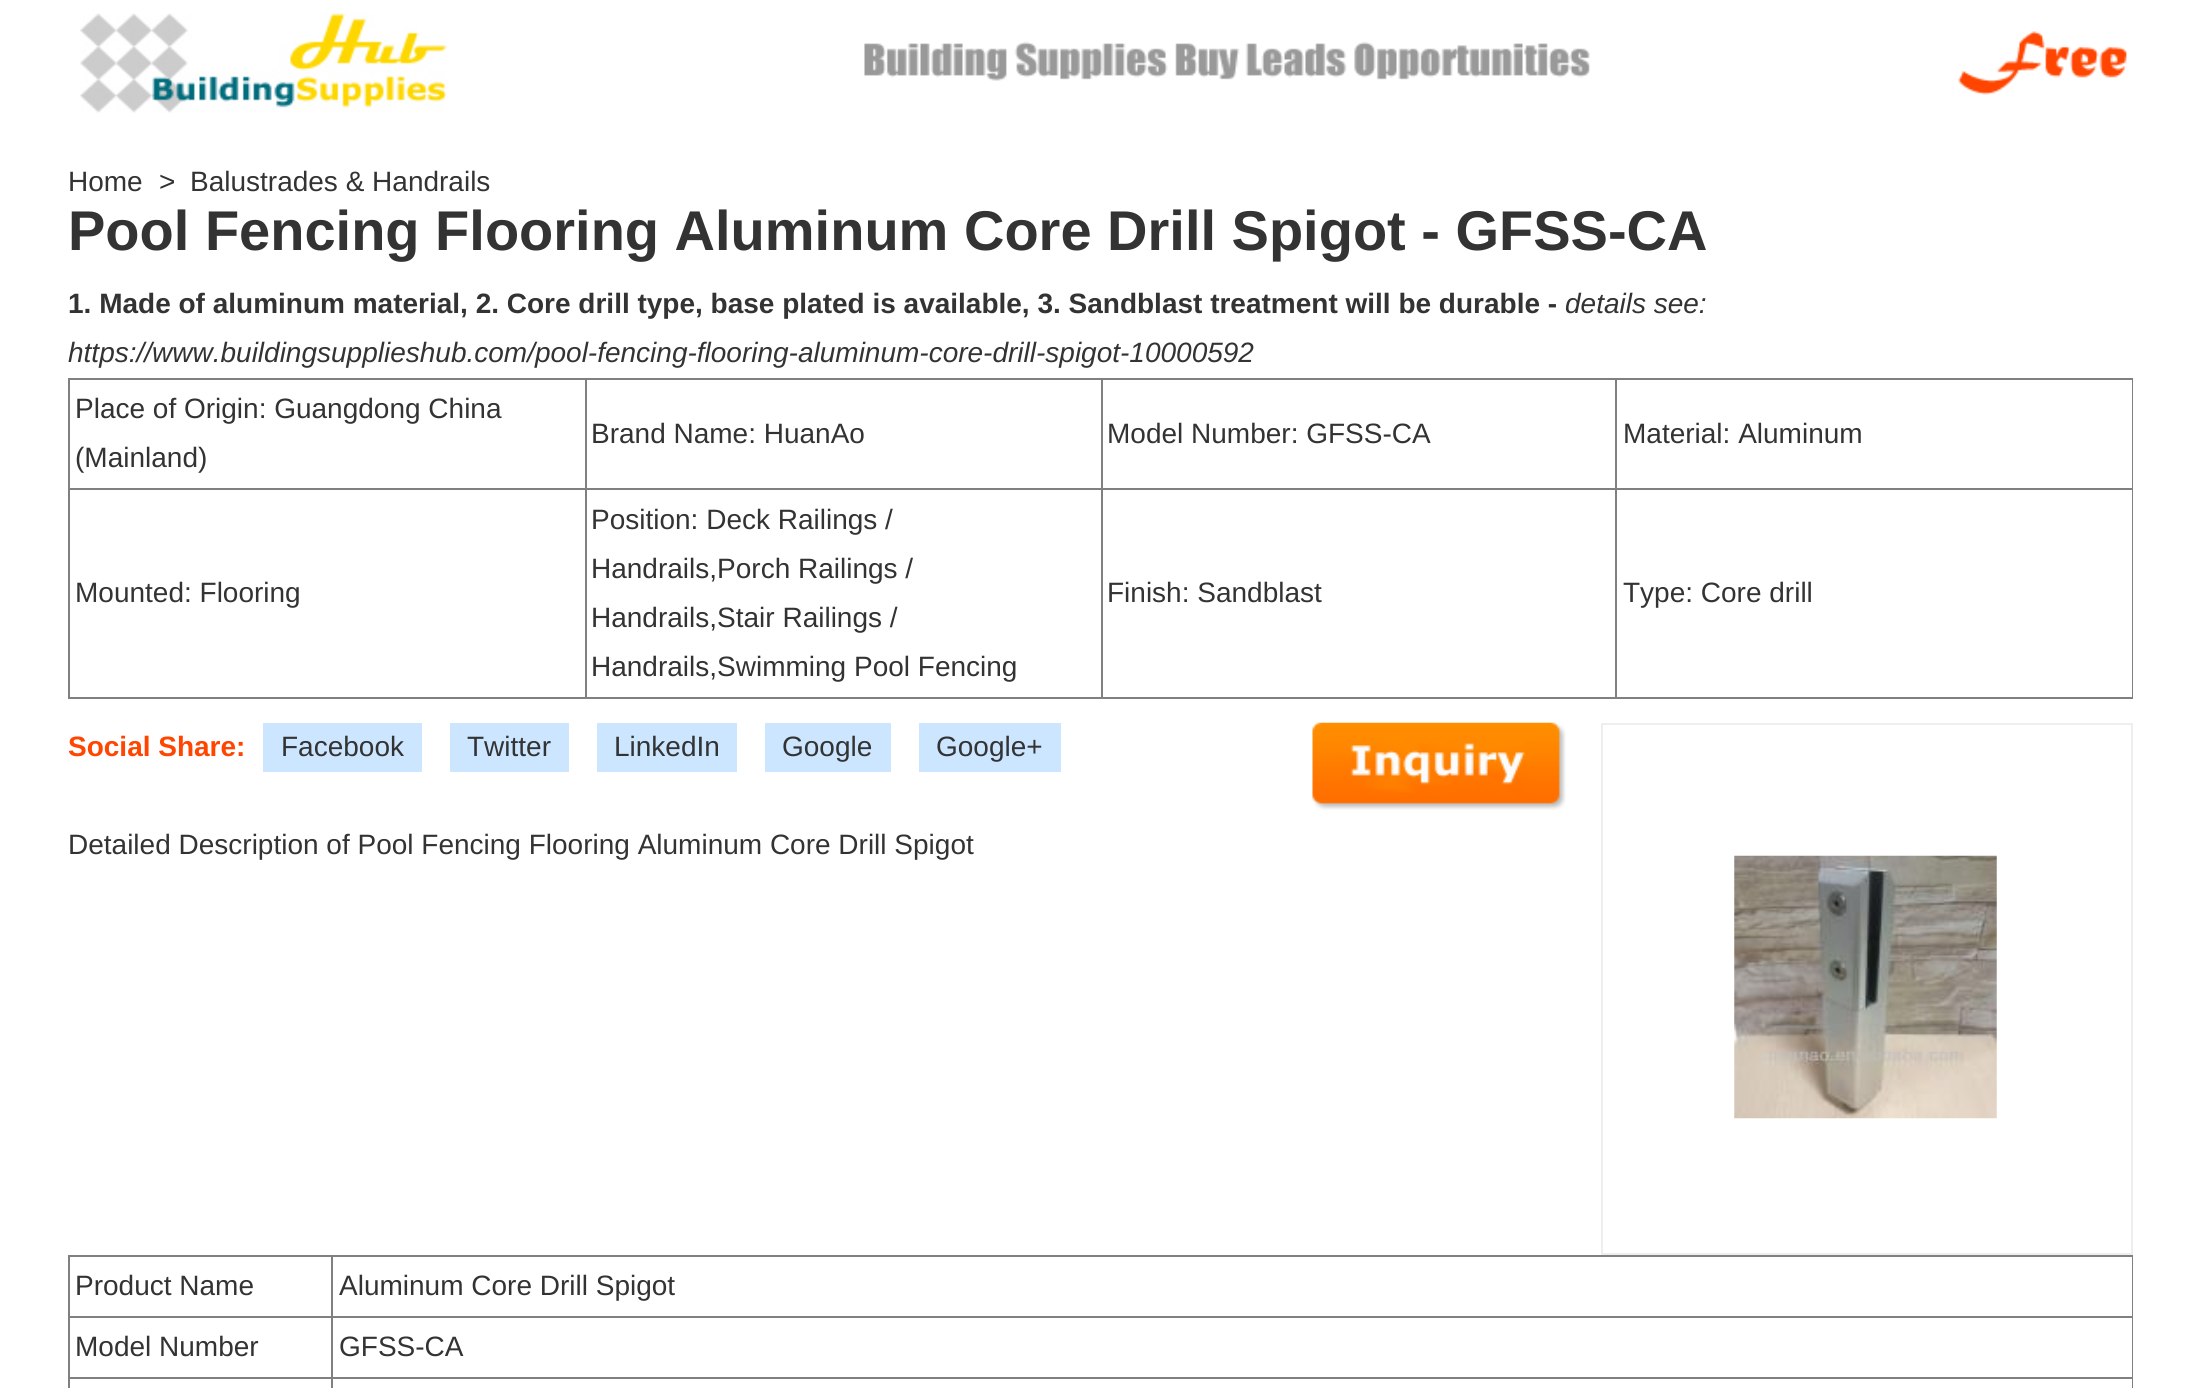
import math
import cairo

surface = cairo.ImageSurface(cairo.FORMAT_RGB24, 2201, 1388)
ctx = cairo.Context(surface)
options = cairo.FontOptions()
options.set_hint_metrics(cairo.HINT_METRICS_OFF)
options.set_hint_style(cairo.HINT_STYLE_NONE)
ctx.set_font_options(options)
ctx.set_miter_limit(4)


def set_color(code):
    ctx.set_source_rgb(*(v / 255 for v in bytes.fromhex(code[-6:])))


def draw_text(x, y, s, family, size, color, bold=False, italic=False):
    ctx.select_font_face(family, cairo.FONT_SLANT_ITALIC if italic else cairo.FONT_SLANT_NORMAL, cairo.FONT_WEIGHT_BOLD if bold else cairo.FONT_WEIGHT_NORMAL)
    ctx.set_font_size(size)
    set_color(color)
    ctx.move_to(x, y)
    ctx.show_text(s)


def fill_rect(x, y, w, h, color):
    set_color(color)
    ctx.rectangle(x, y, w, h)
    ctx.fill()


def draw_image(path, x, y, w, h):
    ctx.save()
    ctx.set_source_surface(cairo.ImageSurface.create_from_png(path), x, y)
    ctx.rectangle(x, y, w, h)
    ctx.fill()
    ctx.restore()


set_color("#ffffff")
ctx.paint()
draw_image("assets/img1.png", 80, 13, 367, 100)
draw_image("assets/img2.png", 864, 31, 1263, 64)
draw_text(68, 191, "Home", "Liberation Sans", 28, "#333333")
draw_text(159, 191, ">", "Liberation Sans", 28, "#333333")
draw_text(190, 191, "Balustrades & Handrails", "Liberation Sans", 28, "#333333")
draw_text(68, 250, "Pool Fencing Flooring Aluminum Core Drill Spigot - GFSS-CA", "Liberation Sans", 56, "#333333", bold=True)
draw_text(68, 313, "1. Made of aluminum material, 2. Core drill type, base plated is available, 3. Sandblast treatment will be durable -", "Liberation Sans", 28, "#333333", bold=True)
draw_text(1565, 313, "details see:", "Liberation Sans", 28, "#333333", italic=True)
draw_text(68, 362, "https://www.buildingsupplieshub.com/pool-fencing-flooring-aluminum-core-drill-spigot-10000592", "Liberation Sans", 28, "#333333", italic=True)
fill_rect(68, 378, 2065, 2, "#808080")
fill_rect(2132, 378, 1, 320, "#808080")
fill_rect(68, 697, 2065, 2, "#808080")
fill_rect(68, 378, 2, 320, "#808080")
draw_text(75, 418, "Place of Origin: Guangdong China", "Liberation Sans", 28, "#333333")
draw_text(75, 467, "(Mainland)", "Liberation Sans", 28, "#333333")
fill_rect(1615, 488, 518, 2, "#808080")
fill_rect(1615, 488, 2, 210, "#808080")
fill_rect(1101, 488, 516, 2, "#808080")
fill_rect(1101, 488, 2, 210, "#808080")
fill_rect(585, 488, 518, 2, "#808080")
fill_rect(585, 488, 2, 210, "#808080")
fill_rect(68, 488, 518, 2, "#808080")
fill_rect(585, 378, 2, 112, "#808080")
draw_text(591, 443, "Brand Name: HuanAo", "Liberation Sans", 28, "#333333")
fill_rect(1101, 378, 2, 112, "#808080")
draw_text(1107, 443, "Model Number: GFSS-CA", "Liberation Sans", 28, "#333333")
fill_rect(1615, 378, 2, 112, "#808080")
draw_text(1623, 443, "Material: Aluminum", "Liberation Sans", 28, "#333333")
draw_text(75, 602, "Mounted: Flooring", "Liberation Sans", 28, "#333333")
draw_text(591, 529, "Position: Deck Railings /", "Liberation Sans", 28, "#333333")
draw_text(591, 578, "Handrails,Porch Railings /", "Liberation Sans", 28, "#333333")
draw_text(591, 627, "Handrails,Stair Railings /", "Liberation Sans", 28, "#333333")
draw_text(591, 676, "Handrails,Swimming Pool Fencing", "Liberation Sans", 28, "#333333")
draw_text(1107, 602, "Finish: Sandblast", "Liberation Sans", 28, "#333333")
draw_text(1623, 602, "Type: Core drill", "Liberation Sans", 28, "#333333")
draw_text(68, 756, "Social Share:", "Liberation Sans", 28, "#ff4500", bold=True)
fill_rect(263, 723, 159, 49, "#cce6ff")
draw_text(281, 756, "Facebook", "Liberation Sans", 28, "#333333")
fill_rect(450, 723, 119, 49, "#cce6ff")
draw_text(467, 756, "Twitter", "Liberation Sans", 28, "#333333")
fill_rect(597, 723, 140, 49, "#cce6ff")
draw_text(614, 756, "LinkedIn", "Liberation Sans", 28, "#333333")
fill_rect(765, 723, 126, 49, "#cce6ff")
draw_text(782, 756, "Google", "Liberation Sans", 28, "#333333")
fill_rect(919, 723, 142, 49, "#cce6ff")
draw_text(936, 756, "Google+", "Liberation Sans", 28, "#333333")
draw_image("assets/img3.png", 1312, 722, 254, 88)
ctx.rectangle(1602, 724, 530, 530)
set_color("#eeeeee")
ctx.stroke()
draw_image("assets/img4.png", 1734, 855, 263, 264)
draw_text(68, 854, "Detailed Description of Pool Fencing Flooring Aluminum Core Drill Spigot", "Liberation Sans", 28, "#333333")
fill_rect(68, 1255, 2065, 2, "#808080")
fill_rect(2132, 1255, 1, 133, "#808080")
fill_rect(68, 1255, 2, 133, "#808080")
draw_text(75, 1295, "Product Name", "Liberation Sans", 28, "#333333")
fill_rect(331, 1316, 1802, 2, "#808080")
fill_rect(331, 1377, 1802, 2, "#808080")
fill_rect(331, 1377, 2, 11, "#808080")
fill_rect(68, 1377, 265, 2, "#808080")
fill_rect(331, 1316, 2, 63, "#808080")
fill_rect(68, 1316, 265, 2, "#808080")
fill_rect(331, 1255, 2, 63, "#808080")
draw_text(339, 1295, "Aluminum Core Drill Spigot", "Liberation Sans", 28, "#333333")
draw_text(75, 1356, "Model Number", "Liberation Sans", 28, "#333333")
draw_text(339, 1356, "GFSS-CA", "Liberation Sans", 28, "#333333")
surface.write_to_png("output.png")
